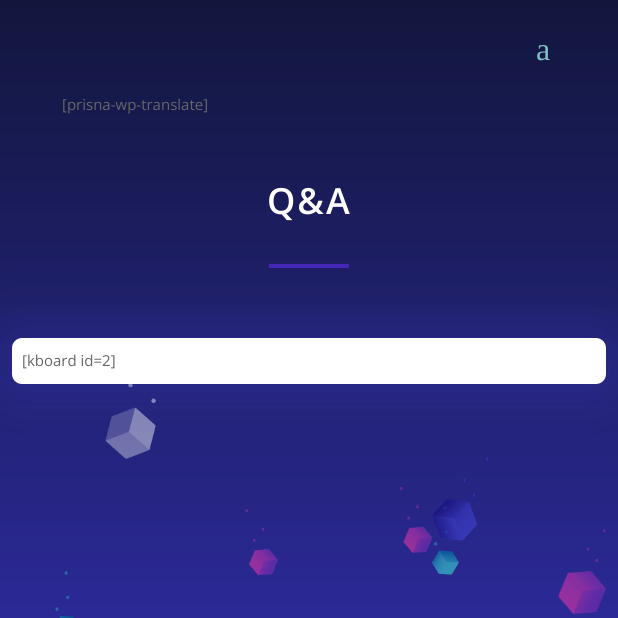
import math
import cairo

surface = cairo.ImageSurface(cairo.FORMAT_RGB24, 618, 618)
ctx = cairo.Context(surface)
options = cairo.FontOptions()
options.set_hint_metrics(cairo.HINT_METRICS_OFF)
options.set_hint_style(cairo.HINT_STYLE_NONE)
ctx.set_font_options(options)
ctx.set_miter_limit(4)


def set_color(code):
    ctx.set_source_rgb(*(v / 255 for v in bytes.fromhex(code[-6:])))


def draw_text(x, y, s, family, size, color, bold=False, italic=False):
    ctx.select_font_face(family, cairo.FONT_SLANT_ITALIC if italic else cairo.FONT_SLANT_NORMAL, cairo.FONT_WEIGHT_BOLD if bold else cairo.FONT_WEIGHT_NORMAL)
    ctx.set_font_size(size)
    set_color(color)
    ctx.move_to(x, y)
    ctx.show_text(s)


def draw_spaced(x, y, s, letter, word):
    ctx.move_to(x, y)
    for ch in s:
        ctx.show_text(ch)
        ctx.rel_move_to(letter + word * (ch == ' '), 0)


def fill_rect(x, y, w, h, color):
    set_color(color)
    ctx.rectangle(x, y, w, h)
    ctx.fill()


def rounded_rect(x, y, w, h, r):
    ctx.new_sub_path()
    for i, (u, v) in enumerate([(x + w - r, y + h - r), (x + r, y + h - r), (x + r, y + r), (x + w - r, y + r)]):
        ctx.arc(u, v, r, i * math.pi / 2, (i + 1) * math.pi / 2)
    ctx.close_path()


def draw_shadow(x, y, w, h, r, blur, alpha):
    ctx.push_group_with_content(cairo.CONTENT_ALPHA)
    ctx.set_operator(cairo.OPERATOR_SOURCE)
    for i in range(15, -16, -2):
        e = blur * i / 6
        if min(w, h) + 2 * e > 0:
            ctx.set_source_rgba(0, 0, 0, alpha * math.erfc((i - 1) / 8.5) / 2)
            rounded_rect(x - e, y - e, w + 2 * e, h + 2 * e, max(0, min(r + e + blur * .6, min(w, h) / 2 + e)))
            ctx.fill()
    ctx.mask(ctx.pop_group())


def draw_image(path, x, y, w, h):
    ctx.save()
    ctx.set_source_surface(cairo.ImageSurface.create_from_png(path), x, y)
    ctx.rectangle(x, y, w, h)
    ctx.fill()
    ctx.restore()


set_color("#ffffff")
ctx.paint()
gradient = cairo.LinearGradient(309, 0, 309, 618)
gradient.add_color_stop_rgba(0, 0.071, 0.086, 0.239, 1)
gradient.add_color_stop_rgba(1, 0.169, 0.161, 0.588, 1)
ctx.set_source(gradient)
ctx.rectangle(0, 0, 618, 618)
ctx.fill()
draw_text(536, 60, "a", "Liberation Serif", 32, "#7ebec5")
draw_text(62, 110, "[prisna-wp-translate]", "Open Sans", 15, "#666666")
ctx.select_font_face("Open Sans SemiBold")
ctx.set_font_size(36)
set_color("#ffffff")
draw_spaced(267, 214, "Q&A", 2, 0)
draw_image("assets/img1.png", 55, 384, 551, 234)
set_color("#3c3cc8")
draw_shadow(12, 340, 594, 46, 10, 30, 0.4)
fill_rect(269, 264, 80, 4, "#4328b7")
set_color("#ffffff")
rounded_rect(12, 338, 594, 46, 10)
ctx.fill()
draw_text(22, 366, "[kboard id=2]", "Open Sans", 15, "#666666")
surface.write_to_png("output.png")
